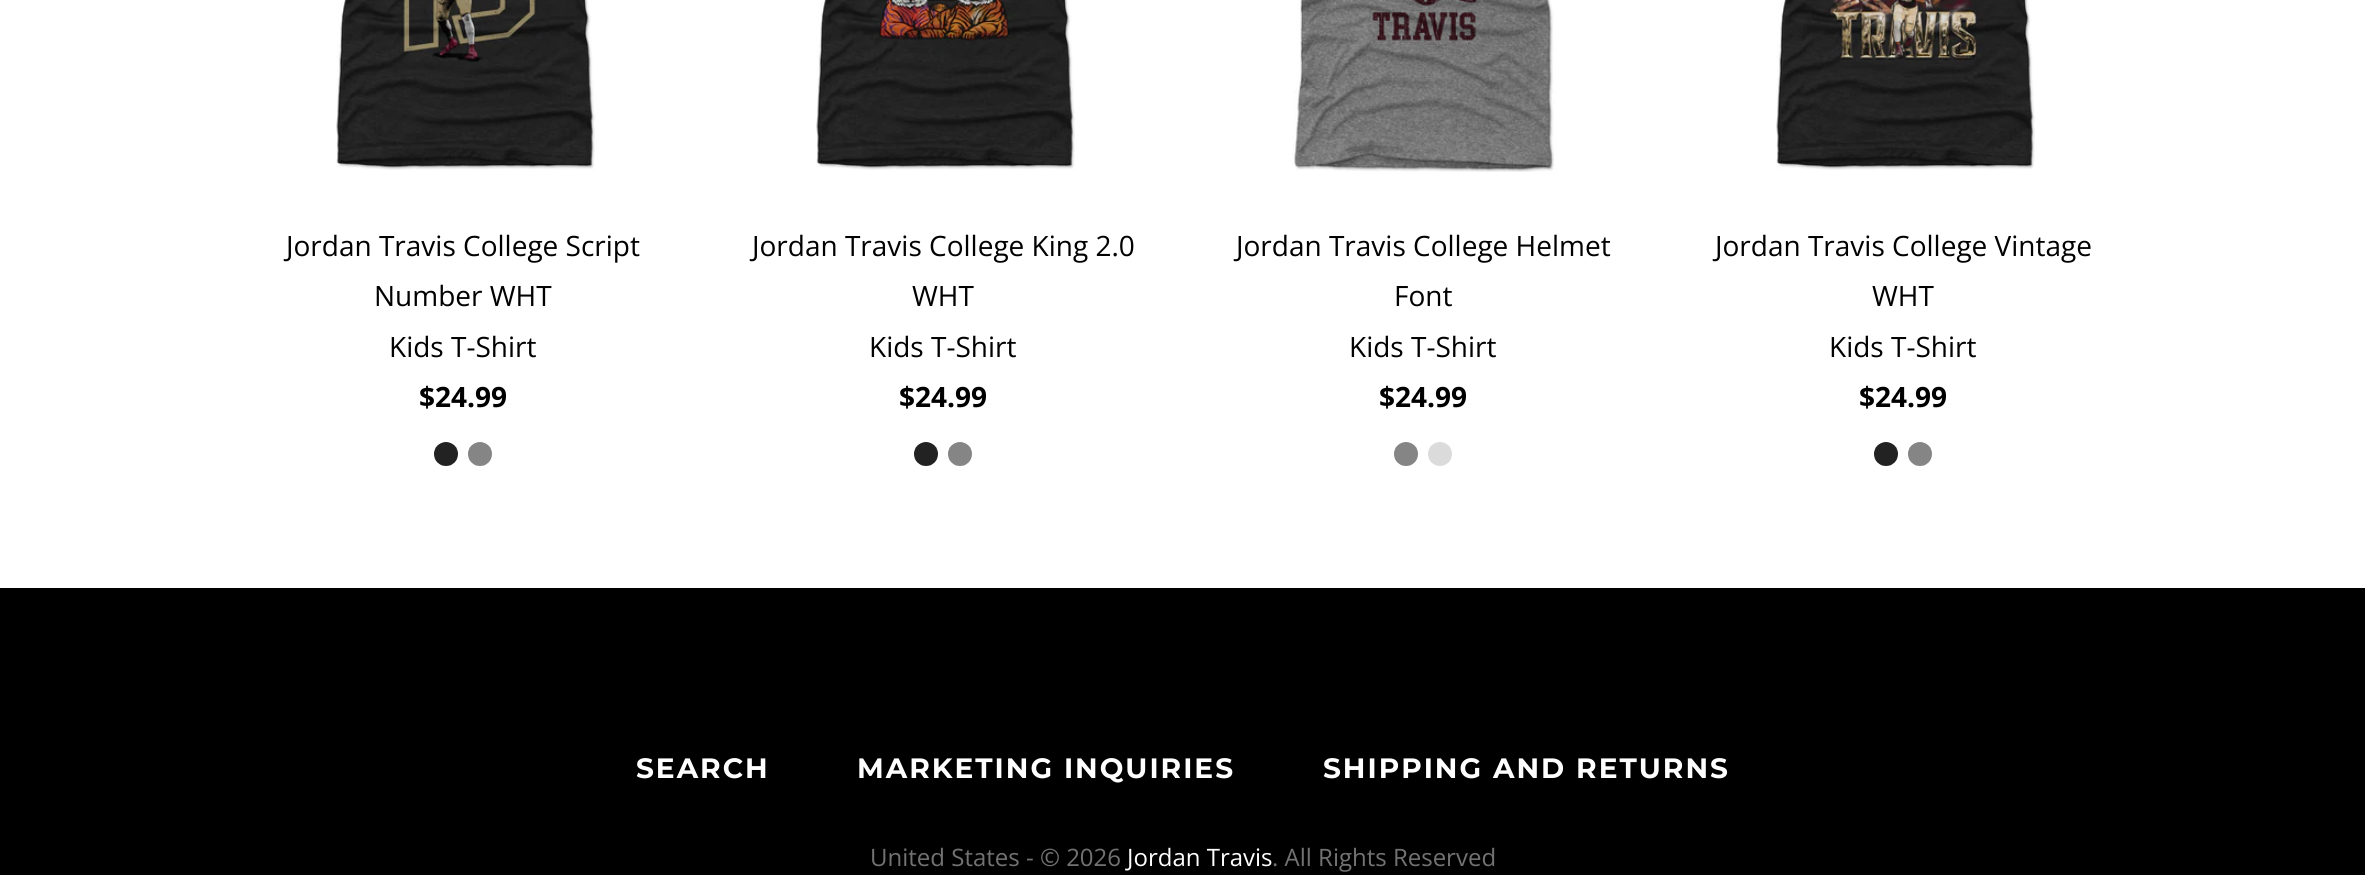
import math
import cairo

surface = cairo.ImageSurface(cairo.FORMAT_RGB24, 2365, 875)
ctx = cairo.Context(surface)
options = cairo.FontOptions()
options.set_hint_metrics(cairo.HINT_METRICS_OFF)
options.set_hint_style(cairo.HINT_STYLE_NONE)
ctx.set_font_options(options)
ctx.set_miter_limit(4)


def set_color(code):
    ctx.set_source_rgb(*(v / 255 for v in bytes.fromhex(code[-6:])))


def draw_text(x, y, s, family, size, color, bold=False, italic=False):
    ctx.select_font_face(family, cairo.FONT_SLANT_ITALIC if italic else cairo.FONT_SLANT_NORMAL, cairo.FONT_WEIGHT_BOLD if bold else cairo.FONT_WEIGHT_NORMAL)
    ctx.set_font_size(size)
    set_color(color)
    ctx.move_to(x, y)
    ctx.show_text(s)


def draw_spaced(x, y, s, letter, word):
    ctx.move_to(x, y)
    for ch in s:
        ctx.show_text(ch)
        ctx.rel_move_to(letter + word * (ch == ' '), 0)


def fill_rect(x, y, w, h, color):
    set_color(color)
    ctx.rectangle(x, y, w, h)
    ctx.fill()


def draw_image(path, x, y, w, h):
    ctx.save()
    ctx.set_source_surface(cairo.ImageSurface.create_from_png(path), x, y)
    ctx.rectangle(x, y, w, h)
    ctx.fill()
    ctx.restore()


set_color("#ffffff")
ctx.paint()
draw_image("assets/img1.png", 336, 0, 260, 170)
draw_text(286, 256, "Jordan Travis College Script", "Open Sans", 28, "#000000")
draw_text(374, 306, "Number WHT", "Open Sans", 28, "#000000")
draw_text(389, 357, "Kids T-Shirt", "Open Sans", 28, "#000000")
draw_text(419, 407, "$24.99", "Open Sans", 28, "#000000", bold=True)
draw_image("assets/img2.png", 434, 442, 24, 24)
draw_image("assets/img3.png", 468, 442, 24, 24)
draw_image("assets/img4.png", 816, 0, 259, 170)
draw_text(752, 256, "Jordan Travis College King 2.0", "Open Sans", 28, "#000000")
draw_text(912, 306, "WHT", "Open Sans", 28, "#000000")
draw_text(869, 357, "Kids T-Shirt", "Open Sans", 28, "#000000")
draw_text(899, 407, "$24.99", "Open Sans", 28, "#000000", bold=True)
draw_image("assets/img5.png", 914, 442, 24, 24)
draw_image("assets/img3.png", 948, 442, 24, 24)
draw_image("assets/img6.png", 1292, 0, 264, 172)
draw_text(1236, 256, "Jordan Travis College Helmet", "Open Sans", 28, "#000000")
draw_text(1394, 306, "Font", "Open Sans", 28, "#000000")
draw_text(1349, 357, "Kids T-Shirt", "Open Sans", 28, "#000000")
draw_text(1379, 407, "$24.99", "Open Sans", 28, "#000000", bold=True)
draw_image("assets/img3.png", 1394, 442, 24, 24)
draw_image("assets/img7.png", 1428, 442, 24, 24)
draw_image("assets/img8.png", 1776, 0, 259, 170)
draw_text(1715, 256, "Jordan Travis College Vintage", "Open Sans", 28, "#000000")
draw_text(1872, 306, "WHT", "Open Sans", 28, "#000000")
draw_text(1829, 357, "Kids T-Shirt", "Open Sans", 28, "#000000")
draw_text(1859, 407, "$24.99", "Open Sans", 28, "#000000", bold=True)
draw_image("assets/img2.png", 1874, 442, 24, 24)
draw_image("assets/img3.png", 1908, 442, 24, 24)
fill_rect(0, 588, 2365, 287, "#000000")
ctx.select_font_face("Montserrat", cairo.FONT_SLANT_NORMAL, cairo.FONT_WEIGHT_BOLD)
set_color("#ffffff")
draw_spaced(636, 778, "SEARCH", 2, 0)
draw_spaced(857, 778, "MARKETING INQUIRIES", 2, 0)
draw_spaced(1323, 778, "SHIPPING AND RETURNS", 2, 0)
draw_text(870, 866, "United States - © 2026", "Open Sans", 24, "#727272")
draw_text(1127, 866, "Jordan Travis", "Open Sans", 24, "#ffffff")
draw_text(1272, 866, ". All Rights Reserved", "Open Sans", 24, "#727272")
surface.write_to_png("output.png")
